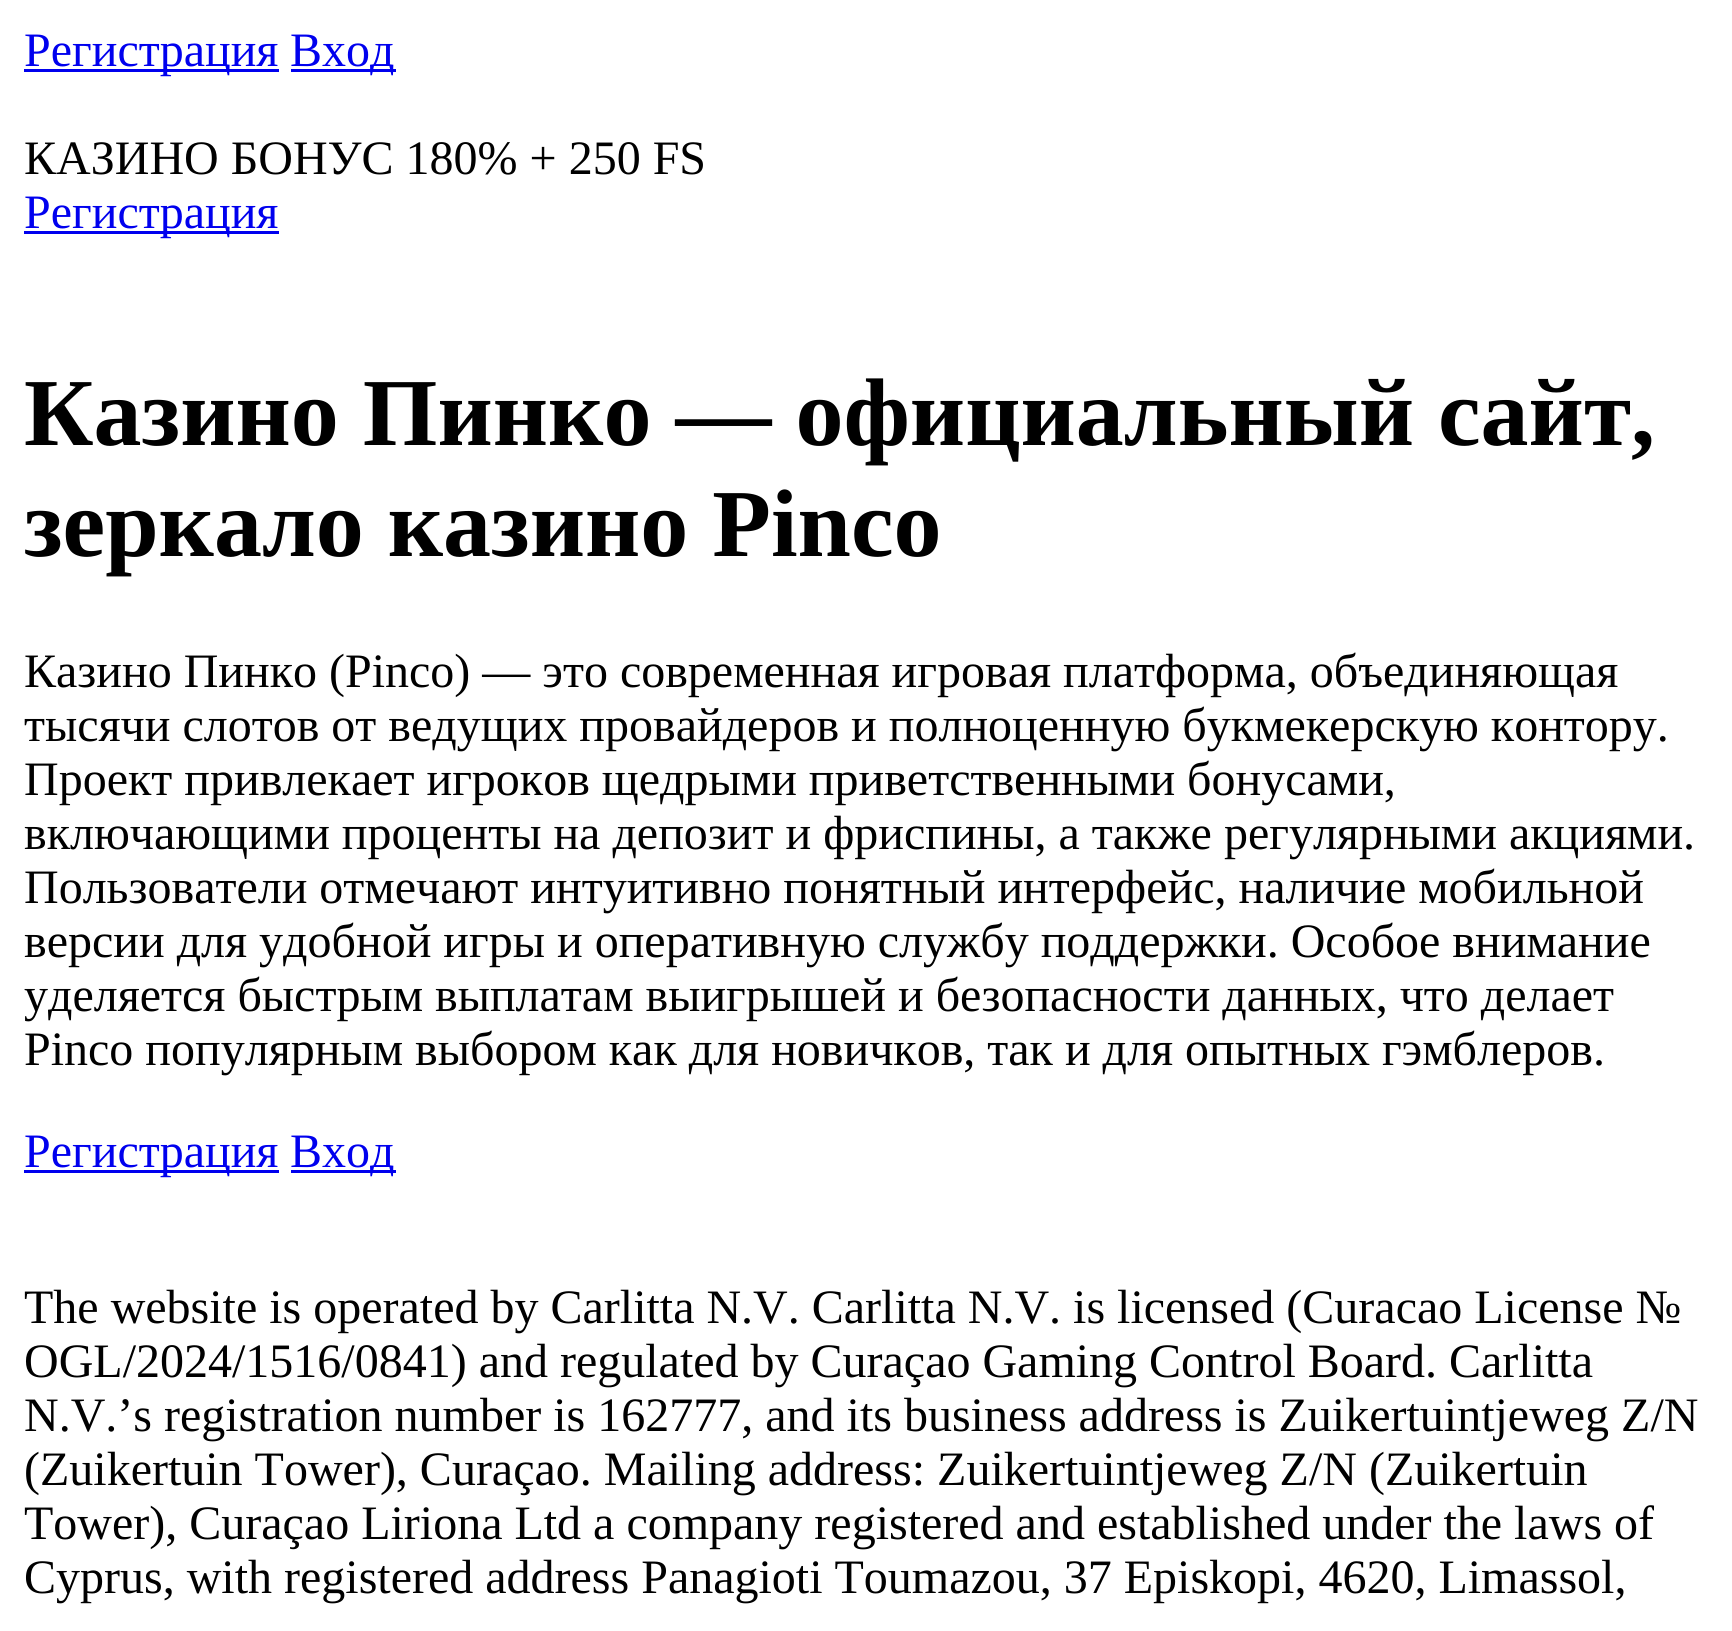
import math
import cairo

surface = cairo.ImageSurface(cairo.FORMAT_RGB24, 1732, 1631)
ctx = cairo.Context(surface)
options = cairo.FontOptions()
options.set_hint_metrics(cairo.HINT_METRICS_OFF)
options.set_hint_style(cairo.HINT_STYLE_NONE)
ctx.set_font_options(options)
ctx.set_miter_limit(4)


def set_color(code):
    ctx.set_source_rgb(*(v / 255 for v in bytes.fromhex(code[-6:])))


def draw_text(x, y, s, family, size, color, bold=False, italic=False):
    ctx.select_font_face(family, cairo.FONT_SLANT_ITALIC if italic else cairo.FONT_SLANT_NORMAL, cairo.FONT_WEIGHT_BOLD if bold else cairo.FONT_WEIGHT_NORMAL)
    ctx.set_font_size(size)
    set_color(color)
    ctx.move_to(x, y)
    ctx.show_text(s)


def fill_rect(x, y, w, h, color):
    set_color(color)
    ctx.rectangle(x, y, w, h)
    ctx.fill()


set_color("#ffffff")
ctx.paint()
fill_rect(24, 69, 255, 3, "#0000ee")
draw_text(24, 66, "Регистрация", "Liberation Serif", 48, "#0000ee")
fill_rect(291, 69, 105, 3, "#0000ee")
draw_text(290, 66, "Вход", "Liberation Serif", 48, "#0000ee")
draw_text(24, 174, "КАЗИНО БОНУС 180% + 250 FS", "Liberation Serif", 48, "#000000")
fill_rect(24, 231, 255, 3, "#0000ee")
draw_text(24, 228, "Регистрация", "Liberation Serif", 48, "#0000ee")
draw_text(24, 445, "Казино Пинко — официальный сайт,", "Liberation Serif", 96, "#000000", bold=True)
draw_text(24, 556, "зеркало казино Pinco", "Liberation Serif", 96, "#000000", bold=True)
draw_text(24, 687, "Казино Пинко (Pinco) — это современная игровая платформа, объединяющая", "Liberation Serif", 48, "#000000")
draw_text(24, 741, "тысячи слотов от ведущих провайдеров и полноценную букмекерскую контору.", "Liberation Serif", 48, "#000000")
draw_text(24, 795, "Проект привлекает игроков щедрыми приветственными бонусами,", "Liberation Serif", 48, "#000000")
draw_text(24, 849, "включающими проценты на депозит и фриспины, а также регулярными акциями.", "Liberation Serif", 48, "#000000")
draw_text(24, 903, "Пользователи отмечают интуитивно понятный интерфейс, наличие мобильной", "Liberation Serif", 48, "#000000")
draw_text(24, 957, "версии для удобной игры и оперативную службу поддержки. Особое внимание", "Liberation Serif", 48, "#000000")
draw_text(24, 1011, "уделяется быстрым выплатам выигрышей и безопасности данных, что делает", "Liberation Serif", 48, "#000000")
draw_text(24, 1065, "Pinco популярным выбором как для новичков, так и для опытных гэмблеров.", "Liberation Serif", 48, "#000000")
fill_rect(24, 1170, 255, 3, "#0000ee")
draw_text(24, 1167, "Регистрация", "Liberation Serif", 48, "#0000ee")
fill_rect(291, 1170, 105, 3, "#0000ee")
draw_text(290, 1167, "Вход", "Liberation Serif", 48, "#0000ee")
draw_text(24, 1323, "The website is operated by Carlitta N.V. Carlitta N.V. is licensed (Curacao License №", "Liberation Serif", 48, "#000000")
draw_text(24, 1377, "OGL/2024/1516/0841) and regulated by Curaçao Gaming Control Board. Carlitta", "Liberation Serif", 48, "#000000")
draw_text(24, 1431, "N.V.’s registration number is 162777, and its business address is Zuikertuintjeweg Z/N", "Liberation Serif", 48, "#000000")
draw_text(24, 1485, "(Zuikertuin Tower), Curaçao. Mailing address: Zuikertuintjeweg Z/N (Zuikertuin", "Liberation Serif", 48, "#000000")
draw_text(24, 1539, "Tower), Curaçao Liriona Ltd a company registered and established under the laws of", "Liberation Serif", 48, "#000000")
draw_text(24, 1593, "Cyprus, with registered address Panagioti Toumazou, 37 Episkopi, 4620, Limassol,", "Liberation Serif", 48, "#000000")
surface.write_to_png("output.png")
